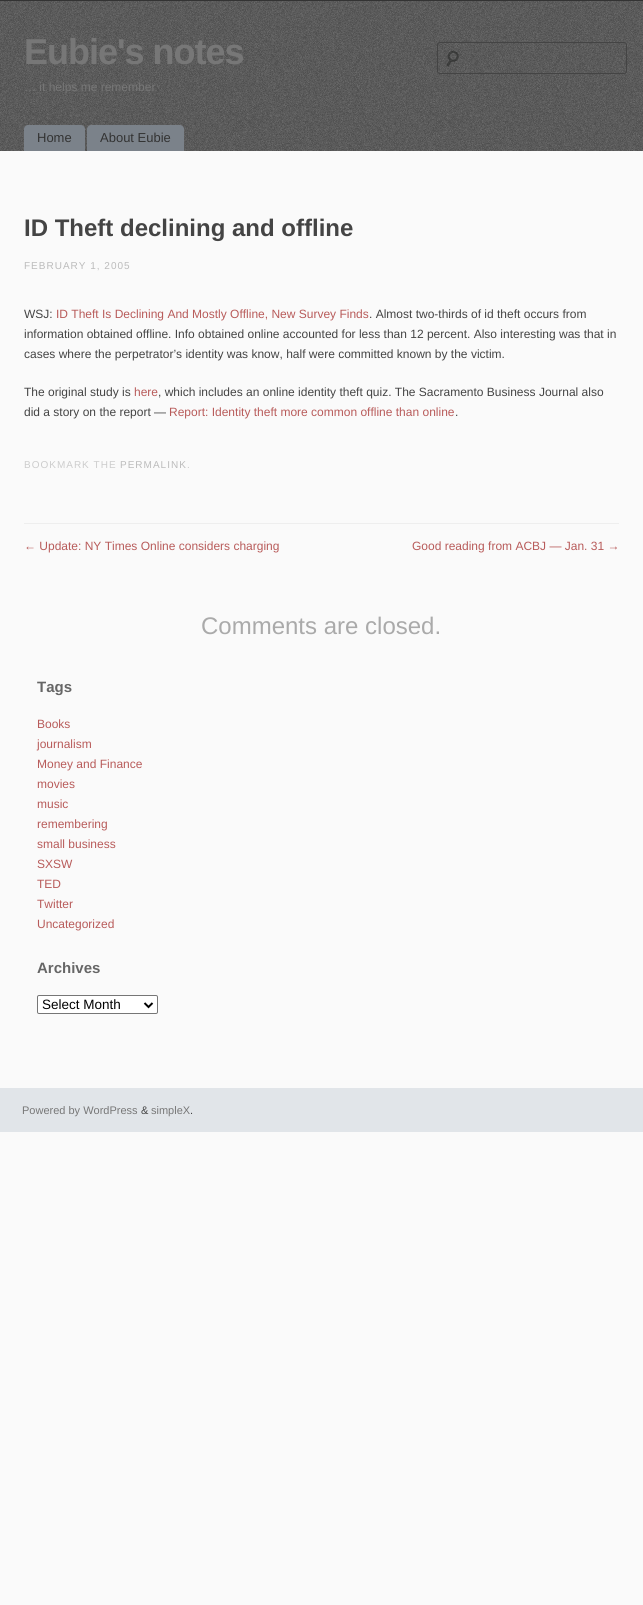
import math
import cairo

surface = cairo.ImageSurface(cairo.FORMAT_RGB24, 643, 1605)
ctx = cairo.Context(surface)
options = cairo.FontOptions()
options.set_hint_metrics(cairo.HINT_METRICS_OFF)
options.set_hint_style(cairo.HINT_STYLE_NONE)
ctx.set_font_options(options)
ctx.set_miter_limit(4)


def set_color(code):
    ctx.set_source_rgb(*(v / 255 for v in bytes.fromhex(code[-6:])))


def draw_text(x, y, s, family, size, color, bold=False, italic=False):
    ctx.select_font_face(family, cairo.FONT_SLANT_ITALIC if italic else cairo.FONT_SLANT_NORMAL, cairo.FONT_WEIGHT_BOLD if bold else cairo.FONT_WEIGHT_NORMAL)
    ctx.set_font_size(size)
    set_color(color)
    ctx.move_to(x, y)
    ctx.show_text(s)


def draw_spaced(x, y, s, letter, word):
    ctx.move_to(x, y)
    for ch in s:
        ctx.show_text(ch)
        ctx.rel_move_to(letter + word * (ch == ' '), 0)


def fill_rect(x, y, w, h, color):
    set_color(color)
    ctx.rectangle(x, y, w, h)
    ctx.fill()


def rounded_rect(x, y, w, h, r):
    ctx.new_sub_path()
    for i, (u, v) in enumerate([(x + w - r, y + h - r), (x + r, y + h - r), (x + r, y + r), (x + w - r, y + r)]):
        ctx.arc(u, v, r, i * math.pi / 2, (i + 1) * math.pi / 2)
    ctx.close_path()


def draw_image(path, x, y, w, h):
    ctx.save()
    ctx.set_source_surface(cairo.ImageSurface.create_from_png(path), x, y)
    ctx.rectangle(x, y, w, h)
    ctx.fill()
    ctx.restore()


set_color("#fafafa")
ctx.paint()
draw_image("assets/img1.png", 0, 1, 643, 150)
fill_rect(0, 0, 643, 1, "#333333")
ctx.select_font_face("Liberation Sans", cairo.FONT_SLANT_NORMAL, cairo.FONT_WEIGHT_BOLD)
ctx.set_font_size(36)
set_color("#777777")
draw_spaced(24, 64, "Eubie's notes", -1, 0)
draw_image("assets/img2.png", 446, 50, 13, 17)
rounded_rect(437.5, 42.5, 189, 31, 2.5)
set_color("#444444")
ctx.set_line_width(1)
ctx.stroke()
draw_text(24, 91, "… it helps me remember", "Liberation Sans", 12, "#777777")
set_color("#7b828a")
ctx.new_path()
ctx.move_to(28, 125)
ctx.line_to(81, 125)
ctx.curve_to(83, 125, 85, 127, 85, 129)
ctx.line_to(85, 151)
ctx.line_to(24, 151)
ctx.line_to(24, 129)
ctx.curve_to(24, 127, 26, 125, 28, 125)
ctx.close_path()
ctx.fill()
draw_text(37, 142, "Home", "Liberation Sans", 13, "#333333")
set_color("#7b828a")
ctx.new_path()
ctx.move_to(91, 125)
ctx.line_to(180, 125)
ctx.curve_to(182, 125, 184, 127, 184, 129)
ctx.line_to(184, 151)
ctx.line_to(87, 151)
ctx.line_to(87, 129)
ctx.curve_to(87, 127, 89, 125, 91, 125)
ctx.close_path()
ctx.fill()
draw_text(100, 142, "About Eubie", "Liberation Sans", 13, "#333333")
fill_rect(24, 523, 595, 1, "#eeeeee")
draw_text(24, 236, "ID Theft declining and offline", "Liberation Sans", 24, "#444444", bold=True)
ctx.select_font_face("Liberation Sans")
ctx.set_font_size(10)
set_color("#bbbbbb")
draw_spaced(24, 269, "FEBRUARY 1, 2005", 1, 0)
draw_text(24, 318, "WSJ:", "Liberation Sans", 12, "#444444")
draw_text(56, 318, "ID Theft Is Declining And Mostly Offline, New Survey Finds", "Liberation Sans", 12, "#b85b5a")
draw_text(369, 318, ". Almost two-thirds of id theft occurs from", "Liberation Sans", 12, "#444444")
draw_text(24, 338, "information obtained offline. Info obtained online accounted for less than 12 percent. Also interesting was that in", "Liberation Sans", 12, "#444444")
draw_text(24, 358, "cases where the perpetrator’s identity was know, half were committed known by the victim.", "Liberation Sans", 12, "#444444")
draw_text(24, 396, "The original study is", "Liberation Sans", 12, "#444444")
draw_text(134, 396, "here", "Liberation Sans", 12, "#b85b5a")
draw_text(158, 396, ", which includes an online identity theft quiz. The Sacramento Business Journal also", "Liberation Sans", 12, "#444444")
draw_text(24, 416, "did a story on the report —", "Liberation Sans", 12, "#444444")
draw_text(169, 416, "Report: Identity theft more common offline than online", "Liberation Sans", 12, "#b85b5a")
draw_text(455, 416, ".", "Liberation Sans", 12, "#444444")
ctx.set_font_size(10)
set_color("#cccccc")
draw_spaced(24, 468, "BOOKMARK THE", 1, 0)
set_color("#bbbbbb")
draw_spaced(120, 468, "PERMALINK", 1, 0)
set_color("#cccccc")
draw_spaced(187, 468, ".", 1, 0)
draw_text(24, 550, "← Update: NY Times Online considers charging", "Liberation Sans", 12, "#b85b5a")
draw_text(412, 550, "Good reading from ACBJ — Jan. 31 →", "Liberation Sans", 12, "#b85b5a")
draw_text(201, 634, "Comments are closed.", "Liberation Sans", 24, "#aaaaaa")
draw_text(37, 692, "Tags", "Liberation Sans", 15, "#666666", bold=True)
draw_text(37, 728, "Books", "Liberation Sans", 12, "#b85b5a")
draw_text(37, 748, "journalism", "Liberation Sans", 12, "#b85b5a")
draw_text(37, 768, "Money and Finance", "Liberation Sans", 12, "#b85b5a")
draw_text(37, 788, "movies", "Liberation Sans", 12, "#b85b5a")
draw_text(37, 808, "music", "Liberation Sans", 12, "#b85b5a")
draw_text(37, 828, "remembering", "Liberation Sans", 12, "#b85b5a")
draw_text(37, 848, "small business", "Liberation Sans", 12, "#b85b5a")
draw_text(37, 868, "SXSW", "Liberation Sans", 12, "#b85b5a")
draw_text(37, 888, "TED", "Liberation Sans", 12, "#b85b5a")
draw_text(37, 908, "Twitter", "Liberation Sans", 12, "#b85b5a")
draw_text(37, 928, "Uncategorized", "Liberation Sans", 12, "#b85b5a")
draw_text(37, 973, "Archives", "Liberation Sans", 15, "#666666", bold=True)
set_color("#ffffff")
rounded_rect(37.5, 995.5, 120, 18, 1.5)
ctx.fill_preserve()
set_color("#767676")
ctx.stroke()
ctx.new_path()
ctx.move_to(144.5, 1003)
ctx.line_to(148.5, 1007)
ctx.line_to(152.5, 1003)
set_color("#000000")
ctx.set_line_width(2)
ctx.stroke()
draw_text(42, 1009, "Select Month", "Liberation Sans", 13.5, "#000000")
fill_rect(0, 1088, 643, 44, "#e1e5e9")
draw_text(22, 1114, "Powered by WordPress", "Liberation Sans", 11, "#777777")
draw_text(141, 1114, "&", "Liberation Sans", 11, "#444444")
draw_text(151, 1114, "simpleX", "Liberation Sans", 11, "#777777")
draw_text(190, 1114, ".", "Liberation Sans", 11, "#444444")
surface.write_to_png("output.png")
